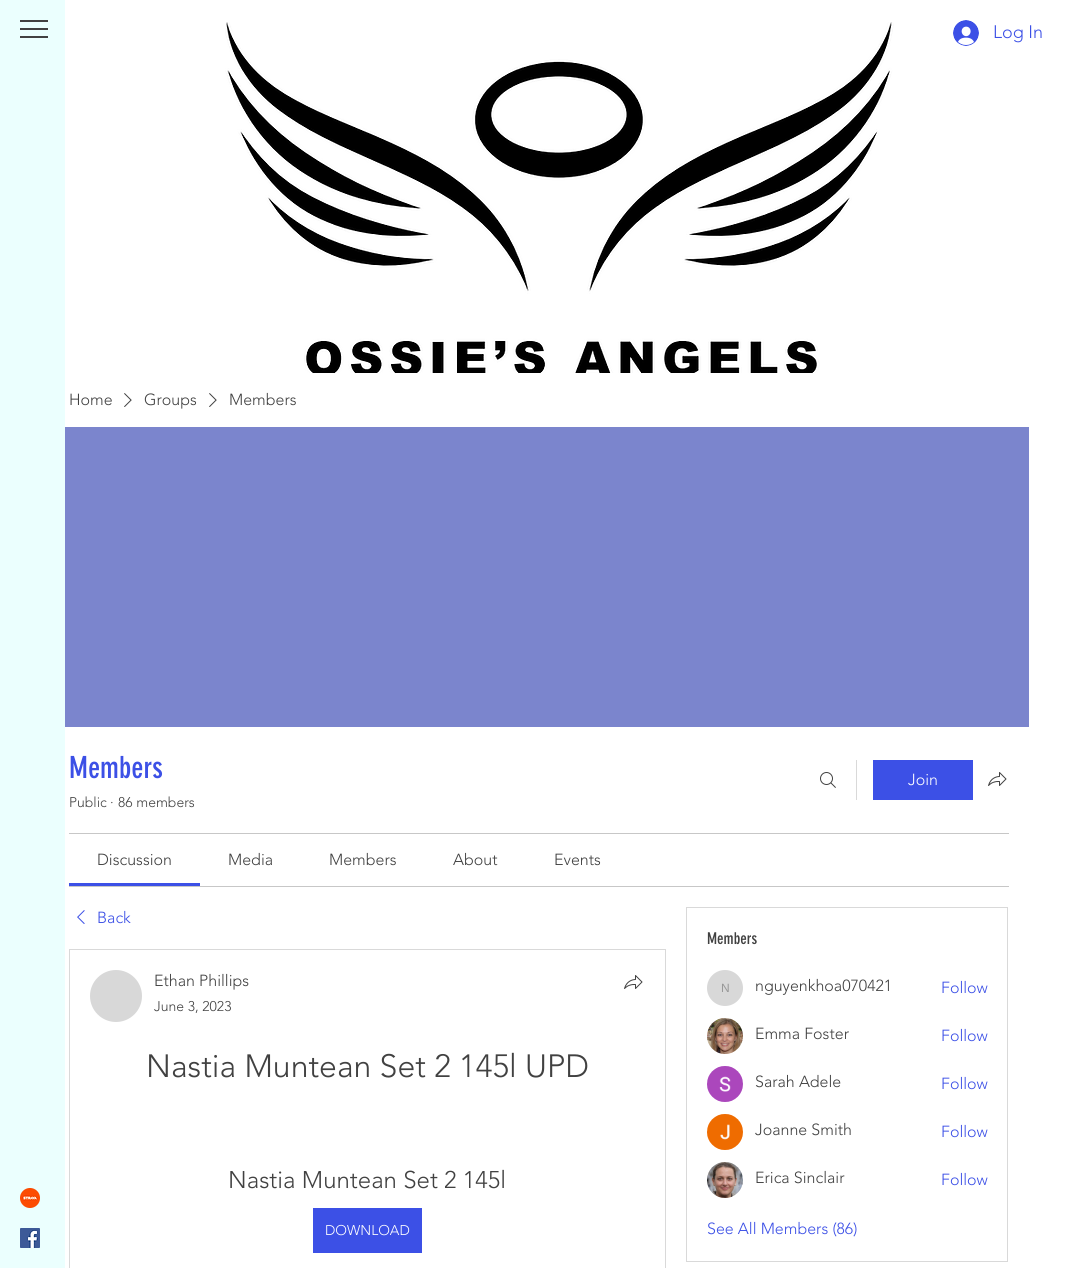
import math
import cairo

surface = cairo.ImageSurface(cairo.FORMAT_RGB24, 1077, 1268)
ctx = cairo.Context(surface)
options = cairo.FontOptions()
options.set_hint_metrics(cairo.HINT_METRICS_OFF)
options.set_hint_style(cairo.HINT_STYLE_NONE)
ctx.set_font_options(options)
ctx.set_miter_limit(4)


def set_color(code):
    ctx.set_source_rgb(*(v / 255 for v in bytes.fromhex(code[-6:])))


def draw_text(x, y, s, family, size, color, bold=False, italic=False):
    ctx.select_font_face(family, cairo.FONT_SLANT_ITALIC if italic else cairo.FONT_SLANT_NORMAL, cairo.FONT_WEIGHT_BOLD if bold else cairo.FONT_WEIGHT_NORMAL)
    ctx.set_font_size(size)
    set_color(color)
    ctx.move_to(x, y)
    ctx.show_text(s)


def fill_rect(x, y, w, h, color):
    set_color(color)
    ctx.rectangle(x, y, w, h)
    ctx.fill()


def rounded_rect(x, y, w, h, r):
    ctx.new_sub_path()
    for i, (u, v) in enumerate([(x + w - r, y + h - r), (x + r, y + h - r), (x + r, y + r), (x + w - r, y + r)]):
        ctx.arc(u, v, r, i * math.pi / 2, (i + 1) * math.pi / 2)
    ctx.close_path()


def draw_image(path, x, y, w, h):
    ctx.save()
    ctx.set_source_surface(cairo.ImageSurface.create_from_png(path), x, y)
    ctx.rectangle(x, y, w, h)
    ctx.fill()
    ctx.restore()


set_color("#ffffff")
ctx.paint()
fill_rect(0, 0, 65, 1268, "#ebfffe")
fill_rect(20, 36, 28, 2, "#414141")
fill_rect(20, 20, 28, 2, "#414141")
fill_rect(20, 28, 28, 2, "#414141")
draw_image("assets/img1.png", 225, 22, 669, 351)
draw_image("assets/img2.png", 953, 20, 26, 26)
draw_text(993, 38, "Log In", "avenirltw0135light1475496 Light", 18, "#3c50e6")
draw_image("assets/img3.png", 20, 1188, 20, 20)
draw_image("assets/img4.png", 20, 1228, 20, 20)
draw_text(69, 405, "Home", "avenirltw0135light1475496 Light", 16, "#414141")
draw_image("assets/img5.png", 124, 393, 8, 14)
draw_text(144, 405, "Groups", "avenirltw0135light1475496 Light", 16, "#414141")
draw_image("assets/img5.png", 209, 393, 8, 14)
draw_text(229, 405, "Members", "avenirltw0135light1475496 Light", 16, "#414141")
fill_rect(65, 427, 964, 300, "#7b85cd")
draw_text(69, 778, "Members", "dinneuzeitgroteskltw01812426", 30, "#3c50e6")
draw_text(69, 807, "Public", "avenirltw0135light1475496 Light", 14, "#414141")
draw_text(110, 807, "·", "avenirltw0135light1475496 Light", 14, "#414141")
draw_text(118, 807, "86 members", "avenirltw0135light1475496 Light", 14, "#414141")
draw_image("assets/img6.png", 820, 772, 16, 16)
fill_rect(856, 760, 1, 40, "#d9d9d9")
fill_rect(873, 760, 100, 40, "#3c50e6")
draw_text(908, 785, "Join", "avenirltw0135light1475496 Light", 16, "#ffffff")
draw_image("assets/img7.png", 988, 772, 19, 14)
fill_rect(69, 833, 940, 1, "#c7c7c7")
fill_rect(69, 886, 940, 1, "#c7c7c7")
fill_rect(69, 883, 131, 3, "#3c50e6")
draw_text(97, 865, "Discussion", "avenirltw0135light1475496 Light", 16, "#414141")
draw_text(228, 865, "Media", "avenirltw0135light1475496 Light", 16, "#414141")
draw_text(329, 865, "Members", "avenirltw0135light1475496 Light", 16, "#414141")
draw_text(453, 865, "About", "avenirltw0135light1475496 Light", 16, "#414141")
draw_text(554, 865, "Events", "avenirltw0135light1475496 Light", 16, "#414141")
draw_image("assets/img8.png", 77, 910, 8, 14)
draw_text(97, 923, "Back", "avenirltw0135light1475496 Light", 16, "#3c50e6")
ctx.rectangle(69.5, 949.5, 596, 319)
set_color("#d9d9d9")
ctx.set_line_width(1)
ctx.stroke()
set_color("#d8d8d8")
ctx.arc(116, 996, 26, 0, 2 * math.pi)
ctx.fill()
draw_text(154, 986, "Ethan Phillips", "avenirltw0135light1475496 Light", 16, "#414141")
draw_text(154, 1011, "June 3, 2023", "avenirltw0135light1475496 Light", 14, "#414141")
draw_image("assets/img7.png", 624, 975, 19, 14)
draw_text(146, 1077, "Nastia Muntean Set 2 145l UPD", "avenirltw0135light1475496 Light", 32, "#414141")
draw_text(228, 1188, "Nastia Muntean Set 2 145l", "avenirltw0135light1475496 Light", 24, "#414141")
set_color("#3c50e6")
rounded_rect(308, 1203, 119, 55, 2)
ctx.fill_preserve()
set_color("#ffffff")
ctx.set_line_width(10)
ctx.stroke()
draw_text(325, 1235, "DOWNLOAD", "avenirltw0135light1475496 Light", 14, "#ffffff")
ctx.rectangle(686.5, 907.5, 321, 354)
set_color("#d9d9d9")
ctx.set_line_width(1)
ctx.stroke()
draw_text(707, 944, "Members", "dinneuzeitgroteskltw01812426", 16, "#414141")
set_color("#d8d8d8")
ctx.new_path()
ctx.arc(725, 988, 18, 0, 2 * math.pi)
ctx.fill()
draw_text(721, 992, "N", "Liberation Sans", 12, "#979797")
draw_text(755, 991, "nguyenkhoa070421", "avenirltw0135light1475496 Light", 16, "#414141")
draw_text(941, 993, "Follow", "avenirltw0135light1475496 Light", 16, "#3c50e6")
draw_image("assets/img9.png", 707, 1018, 36, 36)
draw_text(755, 1039, "Emma Foster", "avenirltw0135light1475496 Light", 16, "#414141")
draw_text(941, 1041, "Follow", "avenirltw0135light1475496 Light", 16, "#3c50e6")
draw_image("assets/img10.png", 707, 1066, 36, 36)
draw_text(755, 1087, "Sarah Adele", "avenirltw0135light1475496 Light", 16, "#414141")
draw_text(941, 1089, "Follow", "avenirltw0135light1475496 Light", 16, "#3c50e6")
draw_image("assets/img11.png", 707, 1114, 36, 36)
draw_text(755, 1135, "Joanne Smith", "avenirltw0135light1475496 Light", 16, "#414141")
draw_text(941, 1137, "Follow", "avenirltw0135light1475496 Light", 16, "#3c50e6")
draw_image("assets/img12.png", 707, 1162, 36, 36)
draw_text(755, 1183, "Erica Sinclair", "avenirltw0135light1475496 Light", 16, "#414141")
draw_text(941, 1185, "Follow", "avenirltw0135light1475496 Light", 16, "#3c50e6")
draw_text(707, 1234, "See All Members (86)", "avenirltw0135light1475496 Light", 16, "#3c50e6")
surface.write_to_png("output.png")
